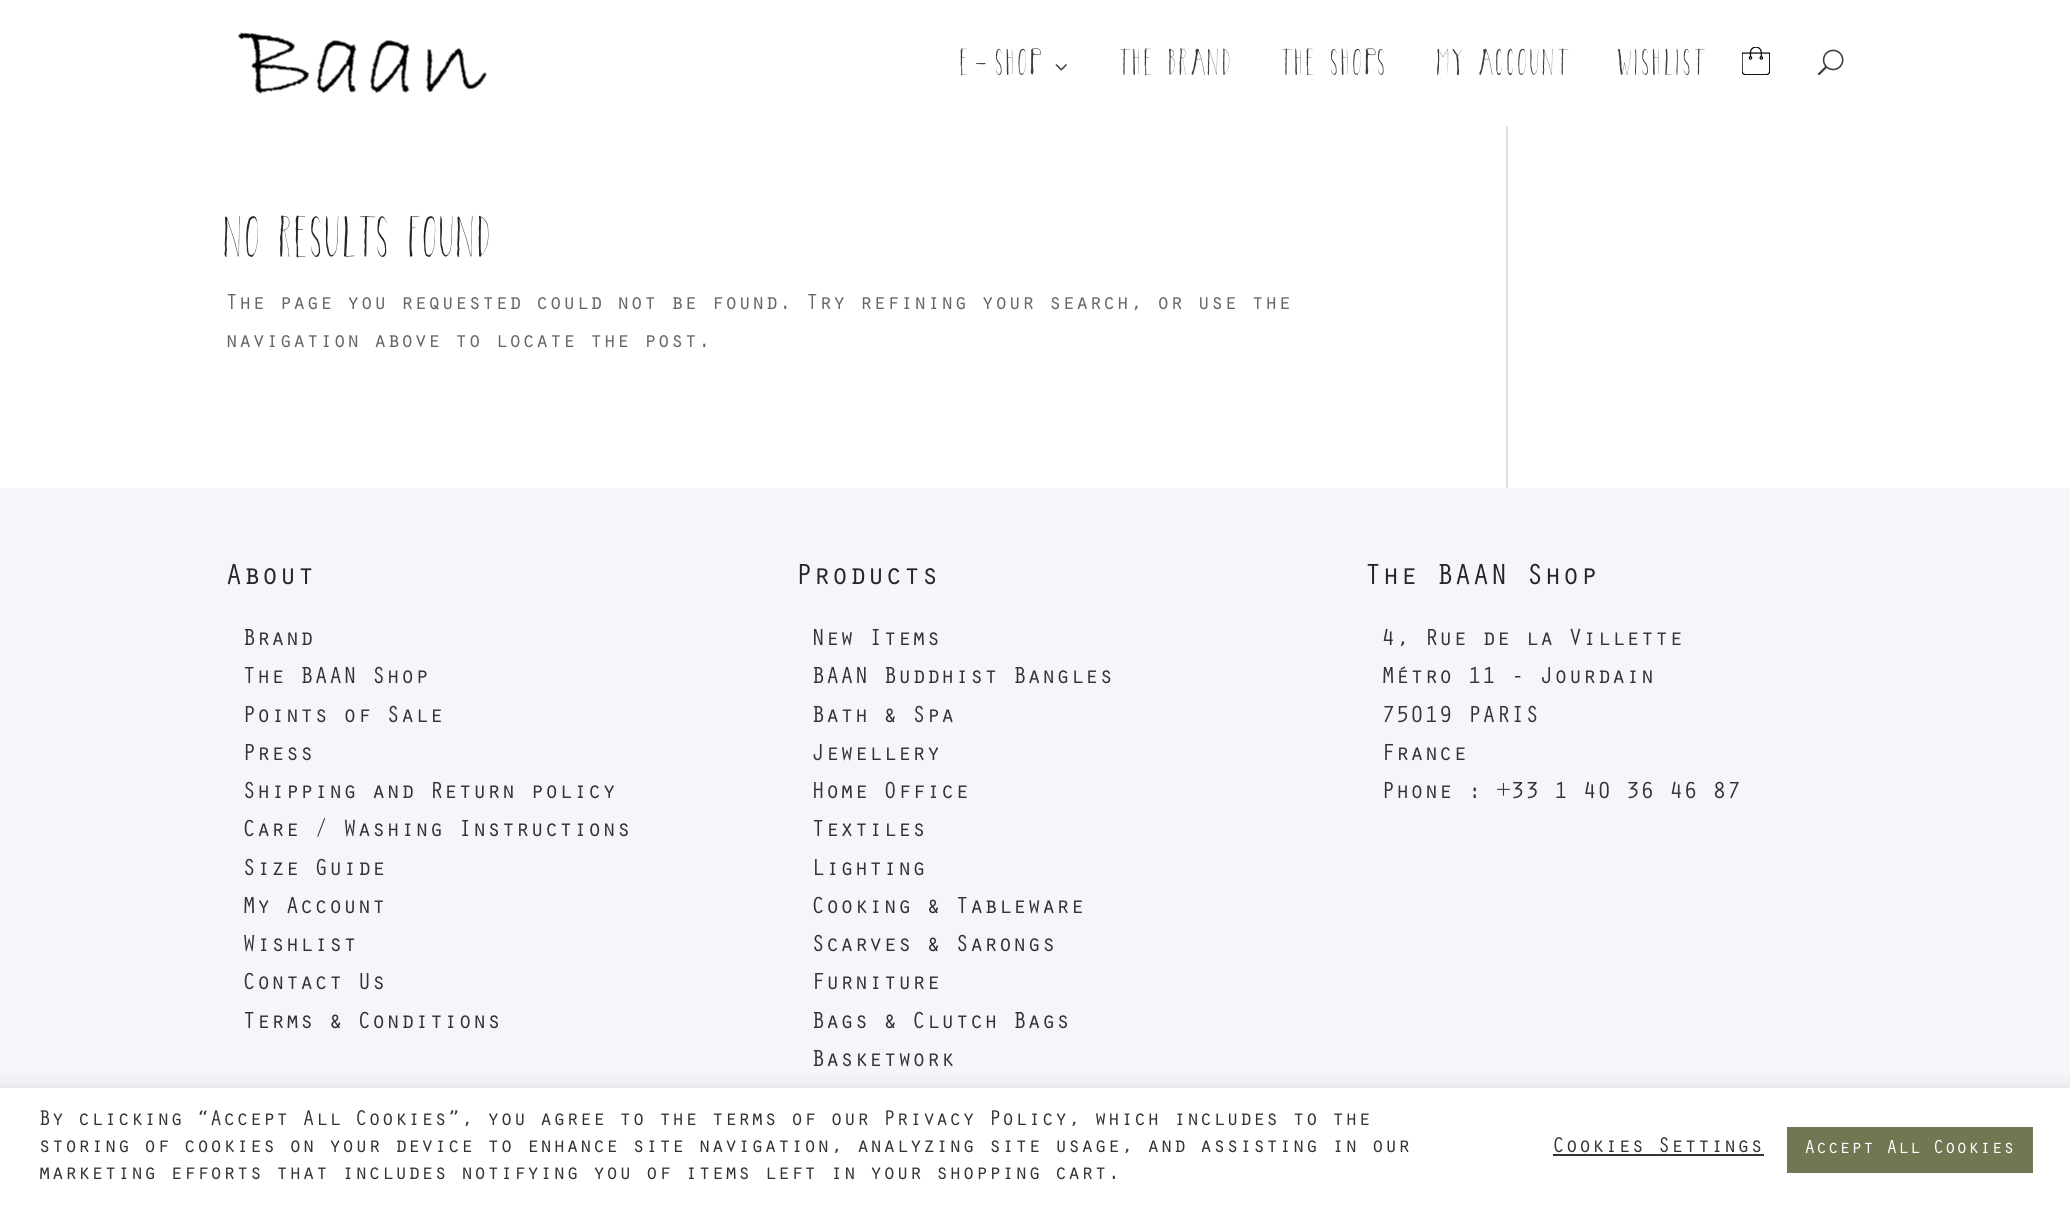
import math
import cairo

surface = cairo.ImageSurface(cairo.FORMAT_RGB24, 2070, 1210)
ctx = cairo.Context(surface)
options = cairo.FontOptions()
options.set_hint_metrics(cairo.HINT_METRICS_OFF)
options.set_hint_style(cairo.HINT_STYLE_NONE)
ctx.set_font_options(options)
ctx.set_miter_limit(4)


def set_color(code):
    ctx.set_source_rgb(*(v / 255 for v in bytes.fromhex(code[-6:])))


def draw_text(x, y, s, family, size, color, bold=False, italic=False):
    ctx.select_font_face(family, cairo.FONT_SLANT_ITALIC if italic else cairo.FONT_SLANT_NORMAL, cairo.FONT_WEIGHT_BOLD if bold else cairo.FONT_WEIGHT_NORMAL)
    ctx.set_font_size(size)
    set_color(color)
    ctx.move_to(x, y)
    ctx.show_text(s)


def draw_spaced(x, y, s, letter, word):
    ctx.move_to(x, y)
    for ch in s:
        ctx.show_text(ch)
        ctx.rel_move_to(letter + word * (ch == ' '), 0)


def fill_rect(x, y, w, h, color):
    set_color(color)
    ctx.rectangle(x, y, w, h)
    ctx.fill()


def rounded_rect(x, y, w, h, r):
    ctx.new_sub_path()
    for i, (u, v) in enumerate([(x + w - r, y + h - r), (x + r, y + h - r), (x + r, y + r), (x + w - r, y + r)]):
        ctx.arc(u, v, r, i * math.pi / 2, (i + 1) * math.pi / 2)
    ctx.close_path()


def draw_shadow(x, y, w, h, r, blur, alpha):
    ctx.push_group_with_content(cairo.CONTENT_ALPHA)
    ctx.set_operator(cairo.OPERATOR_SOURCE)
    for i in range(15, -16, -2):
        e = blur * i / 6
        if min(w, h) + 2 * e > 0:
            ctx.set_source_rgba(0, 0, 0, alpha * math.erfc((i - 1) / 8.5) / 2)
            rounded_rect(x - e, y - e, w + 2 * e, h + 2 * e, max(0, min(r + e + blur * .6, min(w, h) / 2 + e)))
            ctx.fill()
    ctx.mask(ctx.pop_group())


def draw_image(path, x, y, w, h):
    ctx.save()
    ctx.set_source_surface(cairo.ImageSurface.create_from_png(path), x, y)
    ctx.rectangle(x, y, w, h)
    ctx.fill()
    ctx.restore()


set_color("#ffffff")
ctx.paint()
draw_image("assets/img1.png", 238, 32, 249, 62)
ctx.select_font_face("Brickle", cairo.FONT_SLANT_ITALIC, cairo.FONT_WEIGHT_BOLD)
ctx.set_font_size(37.5)
set_color("#3e3e3e")
draw_spaced(961, 75, "E-SHOP", 1.5, 0)
draw_image("assets/img2.png", 1055, 64, 12, 7)
draw_spaced(1120, 75, "THE BRAND", 1.5, 0)
draw_spaced(1282, 75, "THE SHOPS", 1.5, 0)
draw_spaced(1437, 75, "MY ACCOUNT", 1.5, 0)
draw_spaced(1618, 75, "WISHLIST", 1.5, 0)
draw_image("assets/img3.png", 1742, 47, 28, 28)
draw_image("assets/img4.png", 1817, 49, 27, 27)
draw_text(225, 257, "NO RESULTS FOUND", "Brickle", 58.5, "#272525", bold=True, italic=True)
draw_text(225, 309, "The page you requested could not be found. Try refining your search, or use the", "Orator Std", 22.5, "#666666")
draw_text(225, 347, "navigation above to locate the post.", "Orator Std", 22.5, "#666666")
fill_rect(1506, 126, 2, 362, "#e2e2e2")
fill_rect(0, 488, 2070, 600, "#f5f6fa")
draw_text(225, 584, "About", "Orator Std", 30, "#272525")
draw_text(242, 645, "Brand", "Orator Std", 24, "#333333")
draw_text(242, 683, "The BAAN Shop", "Orator Std", 24, "#333333")
draw_text(242, 722, "Points of Sale", "Orator Std", 24, "#333333")
draw_text(242, 760, "Press", "Orator Std", 24, "#333333")
draw_text(242, 798, "Shipping and Return policy", "Orator Std", 24, "#333333")
draw_text(242, 836, "Care / Washing Instructions", "Orator Std", 24, "#333333")
draw_text(242, 875, "Size Guide", "Orator Std", 24, "#333333")
draw_text(242, 913, "My Account", "Orator Std", 24, "#333333")
draw_text(242, 951, "Wishlist", "Orator Std", 24, "#333333")
draw_text(242, 989, "Contact Us", "Orator Std", 24, "#333333")
draw_text(242, 1028, "Terms & Conditions", "Orator Std", 24, "#333333")
draw_text(795, 584, "Products", "Orator Std", 30, "#272525")
draw_text(811, 645, "New Items", "Orator Std", 24, "#333333")
draw_text(811, 683, "BAAN Buddhist Bangles", "Orator Std", 24, "#333333")
draw_text(811, 722, "Bath & Spa", "Orator Std", 24, "#333333")
draw_text(811, 760, "Jewellery", "Orator Std", 24, "#333333")
draw_text(811, 798, "Home Office", "Orator Std", 24, "#333333")
draw_text(811, 836, "Textiles", "Orator Std", 24, "#333333")
draw_text(811, 875, "Lighting", "Orator Std", 24, "#333333")
draw_text(811, 913, "Cooking & Tableware", "Orator Std", 24, "#333333")
draw_text(811, 951, "Scarves & Sarongs", "Orator Std", 24, "#333333")
draw_text(811, 989, "Furniture", "Orator Std", 24, "#333333")
draw_text(811, 1028, "Bags & Clutch Bags", "Orator Std", 24, "#333333")
draw_text(811, 1066, "Basketwork", "Orator Std", 24, "#333333")
draw_text(1364, 584, "The BAAN Shop", "Orator Std", 30, "#272525")
draw_text(1381, 645, "4, Rue de la Villette", "Orator Std", 24, "#333333")
draw_text(1381, 683, "Métro 11 - Jourdain", "Orator Std", 24, "#333333")
draw_text(1381, 722, "75019 PARIS", "Orator Std", 24, "#333333")
draw_text(1381, 760, "France", "Orator Std", 24, "#333333")
draw_text(1381, 798, "Phone : +33 1 40 36 46 87", "Orator Std", 24, "#333333")
set_color("#acabab")
draw_shadow(0, 1086, 2070, 123, 0, 7.5, 0.3)
fill_rect(0, 1088, 2070, 122, "#ffffff")
draw_text(38, 1125, "By clicking “Accept All Cookies”, you agree to the terms of our Privacy Policy, which includes to the", "Orator Std", 22, "#333333")
draw_text(38, 1152, "storing of cookies on your device to enhance site navigation, analyzing site usage, and assisting in our", "Orator Std", 22, "#333333")
draw_text(38, 1179, "marketing efforts that includes notifying you of items left in your shopping cart.", "Orator Std", 22, "#333333")
draw_text(1552, 1152, "Cookies Settings", "Orator Std", 22, "#333333")
fill_rect(1553, 1154, 211, 2, "#333333")
fill_rect(1787, 1127, 246, 46, "#737652")
draw_text(1804, 1153, "Accept All Cookies", "Orator Std", 19.5, "#ffffff")
surface.write_to_png("output.png")
